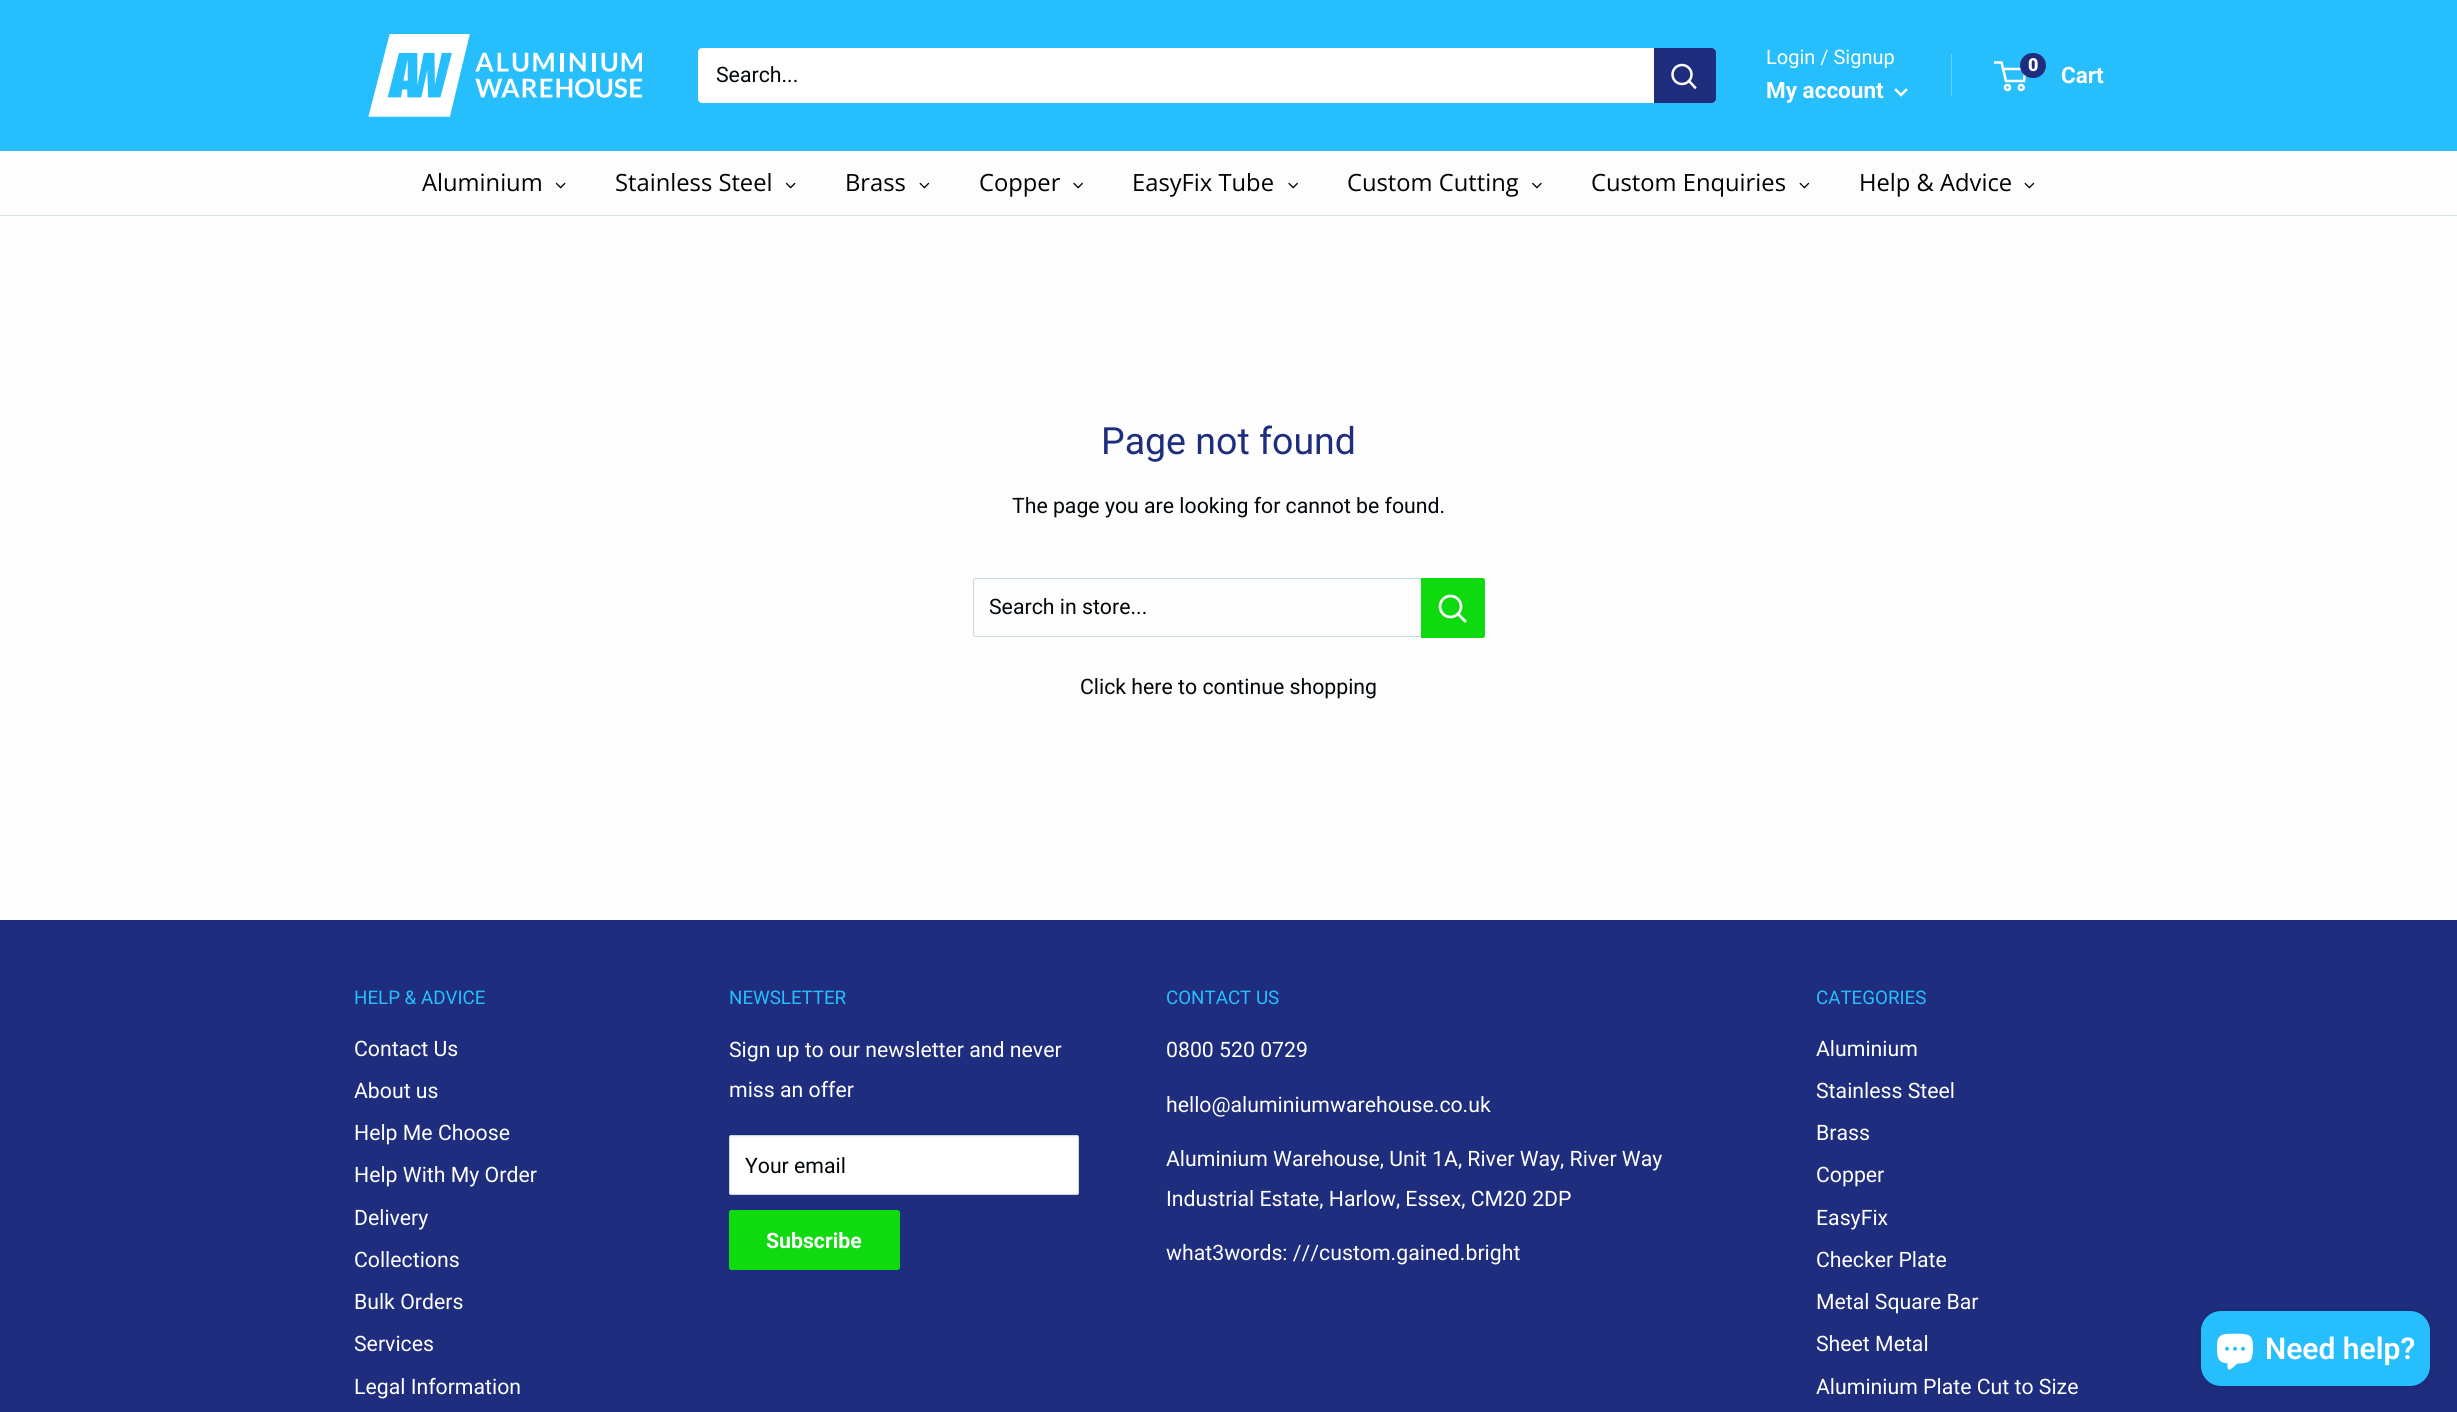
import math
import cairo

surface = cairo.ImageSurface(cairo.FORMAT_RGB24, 2457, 1412)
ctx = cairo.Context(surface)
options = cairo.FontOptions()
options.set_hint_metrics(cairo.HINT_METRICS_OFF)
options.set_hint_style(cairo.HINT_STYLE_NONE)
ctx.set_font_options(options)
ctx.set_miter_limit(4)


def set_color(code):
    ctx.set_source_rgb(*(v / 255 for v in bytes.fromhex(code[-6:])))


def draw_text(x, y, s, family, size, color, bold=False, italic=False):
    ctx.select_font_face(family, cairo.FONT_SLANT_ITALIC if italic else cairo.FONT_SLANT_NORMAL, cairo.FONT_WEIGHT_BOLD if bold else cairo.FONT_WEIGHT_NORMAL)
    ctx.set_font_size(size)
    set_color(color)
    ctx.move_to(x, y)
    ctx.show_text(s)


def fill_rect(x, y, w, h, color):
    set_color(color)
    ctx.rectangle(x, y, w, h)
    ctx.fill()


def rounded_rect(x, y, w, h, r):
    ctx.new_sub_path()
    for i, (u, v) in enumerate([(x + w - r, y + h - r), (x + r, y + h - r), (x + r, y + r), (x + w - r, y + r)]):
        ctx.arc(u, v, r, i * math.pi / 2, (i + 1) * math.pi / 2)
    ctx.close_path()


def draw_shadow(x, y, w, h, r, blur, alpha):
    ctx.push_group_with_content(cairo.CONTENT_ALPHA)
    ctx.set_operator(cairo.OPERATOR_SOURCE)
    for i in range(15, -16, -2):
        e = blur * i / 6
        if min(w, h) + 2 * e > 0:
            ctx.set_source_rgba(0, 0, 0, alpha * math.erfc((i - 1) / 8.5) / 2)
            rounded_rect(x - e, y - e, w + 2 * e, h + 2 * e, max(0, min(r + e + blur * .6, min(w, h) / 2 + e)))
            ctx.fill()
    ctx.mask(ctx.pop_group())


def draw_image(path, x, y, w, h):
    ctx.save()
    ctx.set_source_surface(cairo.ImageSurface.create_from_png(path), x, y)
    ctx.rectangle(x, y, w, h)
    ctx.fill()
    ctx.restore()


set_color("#fdfdfd")
ctx.paint()
fill_rect(0, 0, 2457, 151, "#26befc")
draw_image("assets/img1.png", 368, 34, 274, 83)
set_color("#ffffff")
rounded_rect(698, 48, 1018, 55, 4)
ctx.fill()
draw_text(716, 82, "Search...", "Roboto", 21.25, "#00060a")
set_color("#1e2d7d")
ctx.new_path()
ctx.move_to(1654, 48)
ctx.line_to(1712, 48)
ctx.curve_to(1714, 48, 1716, 50, 1716, 52)
ctx.line_to(1716, 99)
ctx.curve_to(1716, 101, 1714, 103, 1712, 103)
ctx.line_to(1654, 103)
ctx.close_path()
ctx.fill()
ctx.new_path()
ctx.move_to(1695, 87.5)
ctx.line_to(1689, 81)
set_color("#ffffff")
ctx.set_line_width(2.5)
ctx.set_line_cap(cairo.LINE_CAP_SQUARE)
ctx.stroke()
ctx.arc(1682, 74.5, 9.5, 0, 2 * math.pi)
ctx.set_line_cap(cairo.LINE_CAP_BUTT)
ctx.stroke()
draw_text(1766, 64, "Login / Signup", "Roboto", 20, "#ffffff")
fill_rect(1951, 54, 1, 42, "#67d2fd")
draw_text(1766, 98, "My account", "Roboto", 22.5, "#ffffff", bold=True)
ctx.new_path()
ctx.move_to(1906, 90)
ctx.line_to(1901, 95)
ctx.line_to(1896, 90)
ctx.set_line_cap(cairo.LINE_CAP_SQUARE)
ctx.stroke()
ctx.arc(2007.5, 87.5, 2.5, 0, 2 * math.pi)
ctx.set_line_cap(cairo.LINE_CAP_BUTT)
ctx.stroke()
ctx.arc(2021.2, 87.5, 2.5, 0, 2 * math.pi)
ctx.stroke()
ctx.new_path()
ctx.move_to(2003, 69)
ctx.line_to(2025.5, 69)
ctx.line_to(2024, 81)
ctx.line_to(2006, 81)
ctx.line_to(2001.5, 62.5)
ctx.line_to(1994, 62.5)
ctx.stroke()
set_color("#1e2d7d")
rounded_rect(2020, 53, 26, 25, 12.5)
ctx.fill()
draw_text(2028, 71, "0", "Roboto Black", 18, "#ffffff")
draw_text(2061, 83, "Cart", "Roboto", 22.5, "#ffffff", bold=True)
fill_rect(0, 215, 2457, 1, "#d7e4ea")
draw_text(422, 191, "Aluminium", "Open Sans", 23.75, "#000000")
draw_image("assets/img2.png", 555, 182, 11, 7)
draw_text(615, 191, "Stainless Steel", "Open Sans", 23.75, "#000000")
draw_image("assets/img2.png", 785, 182, 11, 7)
draw_text(845, 191, "Brass", "Open Sans", 23.75, "#000000")
draw_image("assets/img3.png", 919, 182, 11, 7)
draw_text(979, 191, "Copper", "Open Sans", 23.75, "#000000")
draw_image("assets/img4.png", 1073, 182, 10, 7)
draw_text(1132, 191, "EasyFix Tube", "Open Sans", 23.75, "#000000")
draw_image("assets/img4.png", 1288, 182, 10, 7)
draw_text(1347, 191, "Custom Cutting", "Open Sans", 23.75, "#000000")
draw_image("assets/img5.png", 1532, 182, 10, 7)
draw_text(1591, 191, "Custom Enquiries", "Open Sans", 23.75, "#000000")
draw_image("assets/img3.png", 1799, 182, 11, 7)
draw_text(1859, 191, "Help & Advice", "Open Sans", 23.75, "#000000")
draw_image("assets/img3.png", 2024, 182, 11, 7)
draw_text(1101, 454, "Page not found", "Roboto", 37.5, "#1e2d7d")
draw_text(1012, 513, "The page you are looking for cannot be found.", "Roboto", 21.25, "#00060a")
set_color("#f5f8fa")
ctx.new_path()
ctx.move_to(975, 580)
ctx.line_to(1421, 580)
ctx.line_to(1421, 579)
ctx.line_to(975, 579)
ctx.line_to(974, 580)
ctx.line_to(974, 581)
ctx.close_path()
ctx.fill()
fill_rect(974, 578, 447, 1, "#c6d9e1")
fill_rect(974, 636, 447, 1, "#c6d9e1")
fill_rect(973, 579, 1, 57, "#c6d9e1")
draw_text(989, 614, "Search in store...", "Roboto", 21.25, "#00060a")
set_color("#0fda0f")
ctx.new_path()
ctx.move_to(1421, 578)
ctx.line_to(1482.5, 578)
ctx.curve_to(1484, 578, 1485, 579, 1485, 580.5)
ctx.line_to(1485, 635.5)
ctx.curve_to(1485, 637, 1484, 638, 1482.5, 638)
ctx.line_to(1421, 638)
ctx.close_path()
ctx.fill()
ctx.new_path()
ctx.move_to(1465, 621)
ctx.line_to(1458, 614)
set_color("#ffffff")
ctx.set_line_width(2.7)
ctx.set_line_cap(cairo.LINE_CAP_SQUARE)
ctx.stroke()
ctx.arc(1450.5, 606.5, 10.5, 0, 2 * math.pi)
ctx.set_line_cap(cairo.LINE_CAP_BUTT)
ctx.stroke()
draw_text(1080, 694, "Click here to continue shopping", "Roboto", 21.25, "#00060a")
fill_rect(0, 920, 2457, 492, "#1e2d7d")
draw_text(354, 1004, "HELP & ADVICE", "Roboto", 18.75, "#26befc")
draw_text(354, 1056, "Contact Us", "Roboto", 21.25, "#ffffff")
draw_text(354, 1098, "About us", "Roboto", 21.25, "#ffffff")
draw_text(354, 1140, "Help Me Choose", "Roboto", 21.25, "#ffffff")
draw_text(354, 1182, "Help With My Order", "Roboto", 21.25, "#ffffff")
draw_text(354, 1225, "Delivery", "Roboto", 21.25, "#ffffff")
draw_text(354, 1267, "Collections", "Roboto", 21.25, "#ffffff")
draw_text(354, 1309, "Bulk Orders", "Roboto", 21.25, "#ffffff")
draw_text(354, 1351, "Services", "Roboto", 21.25, "#ffffff")
draw_text(354, 1394, "Legal Information", "Roboto", 21.25, "#ffffff")
draw_text(729, 1004, "NEWSLETTER", "Roboto", 18.75, "#26befc")
draw_text(729, 1057, "Sign up to our newsletter and never", "Roboto", 21.25, "#ffffff")
draw_text(729, 1097, "miss an offer", "Roboto", 21.25, "#ffffff")
rounded_rect(729, 1135, 350, 60, 2.5)
ctx.fill()
set_color("#f5f8fa")
ctx.new_path()
ctx.move_to(731, 1138)
ctx.line_to(1076, 1138)
ctx.curve_to(1077, 1138, 1078, 1138, 1078, 1139)
ctx.line_to(1078, 1136)
ctx.line_to(731, 1136)
ctx.curve_to(730, 1136, 730, 1138, 730, 1139)
ctx.close_path()
ctx.fill()
rounded_rect(729.5, 1135.5, 349, 59, 2)
set_color("#c6d9e1")
ctx.set_line_width(1)
ctx.stroke()
draw_text(745, 1173, "Your email", "Roboto", 21.25, "#00060a")
set_color("#0fda0f")
rounded_rect(729, 1210, 171, 60, 2.5)
ctx.fill()
draw_text(766, 1248, "Subscribe", "Roboto", 21.25, "#ffffff", bold=True)
draw_text(1166, 1004, "CONTACT US", "Roboto", 18.75, "#26befc")
draw_text(1166, 1057, "0800 520 0729", "Roboto", 21.25, "#ffffff")
draw_text(1166, 1112, "hello@aluminiumwarehouse.co.uk", "Roboto", 21.25, "#ffffff")
draw_text(1166, 1166, "Aluminium Warehouse, Unit 1A, River Way, River Way", "Roboto", 21.25, "#ffffff")
draw_text(1166, 1206, "Industrial Estate, Harlow, Essex, CM20 2DP", "Roboto", 21.25, "#ffffff")
draw_text(1166, 1260, "what3words: ///custom.gained.bright", "Roboto", 21.25, "#ffffff")
draw_text(1816, 1004, "CATEGORIES", "Roboto", 18.75, "#26befc")
draw_text(1816, 1056, "Aluminium", "Roboto", 21.25, "#ffffff")
draw_text(1816, 1098, "Stainless Steel", "Roboto", 21.25, "#ffffff")
draw_text(1816, 1140, "Brass", "Roboto", 21.25, "#ffffff")
draw_text(1816, 1182, "Copper", "Roboto", 21.25, "#ffffff")
draw_text(1816, 1225, "EasyFix", "Roboto", 21.25, "#ffffff")
draw_text(1816, 1267, "Checker Plate", "Roboto", 21.25, "#ffffff")
draw_text(1816, 1309, "Metal Square Bar", "Roboto", 21.25, "#ffffff")
draw_text(1816, 1351, "Sheet Metal", "Roboto", 21.25, "#ffffff")
draw_text(1816, 1394, "Aluminium Plate Cut to Size", "Roboto", 21.25, "#ffffff")
set_color("#000000")
draw_shadow(2201, 1311, 229, 75, 20, 3, 0.15)
set_color("#26befc")
rounded_rect(2201, 1311, 229, 75, 20)
ctx.fill()
draw_image("assets/img6.png", 2217, 1333, 36, 37)
draw_text(2265, 1359, "Need help?", "Roboto SemiBold", 30, "#ffffff")
surface.write_to_png("output.png")
